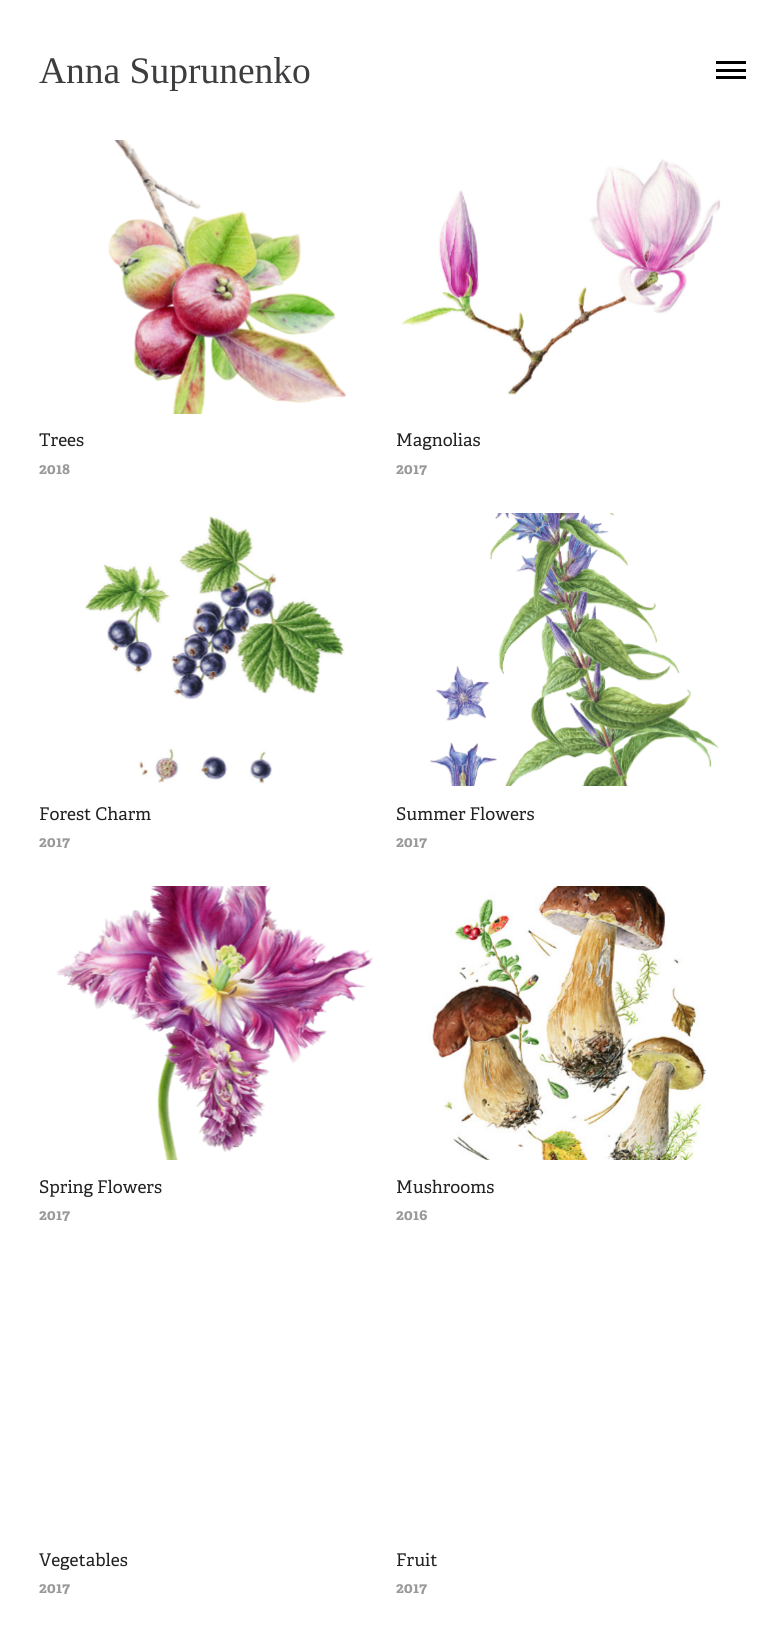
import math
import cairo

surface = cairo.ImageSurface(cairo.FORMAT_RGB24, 784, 1625)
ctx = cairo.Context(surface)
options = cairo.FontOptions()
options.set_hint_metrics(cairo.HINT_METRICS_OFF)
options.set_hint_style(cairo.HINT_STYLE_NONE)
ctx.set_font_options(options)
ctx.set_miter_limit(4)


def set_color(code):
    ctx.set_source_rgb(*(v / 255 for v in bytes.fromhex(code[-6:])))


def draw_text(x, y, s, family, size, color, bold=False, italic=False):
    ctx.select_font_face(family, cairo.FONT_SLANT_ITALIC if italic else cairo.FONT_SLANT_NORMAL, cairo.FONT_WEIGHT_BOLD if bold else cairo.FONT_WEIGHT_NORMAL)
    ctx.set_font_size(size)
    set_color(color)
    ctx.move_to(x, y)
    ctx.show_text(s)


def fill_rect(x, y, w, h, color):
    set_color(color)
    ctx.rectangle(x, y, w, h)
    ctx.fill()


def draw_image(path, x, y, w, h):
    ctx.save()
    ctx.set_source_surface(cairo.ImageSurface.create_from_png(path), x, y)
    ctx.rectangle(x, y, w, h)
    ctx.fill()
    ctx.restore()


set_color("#ffffff")
ctx.paint()
draw_text(39, 83, "Anna Suprunenko", "Liberation Serif", 37.5, "#3d3c3f")
fill_rect(716, 61, 30, 3, "#000000")
fill_rect(716, 69, 30, 3, "#000000")
fill_rect(716, 76, 30, 3, "#000000")
draw_image("assets/img1.png", 108, 140, 238, 274)
draw_text(39, 446, "Trees", "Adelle", 17.5, "#222222")
draw_text(39, 474, "2018", "Adelle", 15, "#999999", bold=True)
draw_image("assets/img2.png", 401, 159, 321, 236)
draw_text(396, 446, "Magnolias", "Adelle", 17.5, "#222222")
draw_text(396, 474, "2017", "Adelle", 15, "#999999", bold=True)
draw_image("assets/img3.png", 85, 516, 260, 268)
draw_text(39, 820, "Forest Charm", "Adelle", 17.5, "#222222")
draw_text(39, 847, "2017", "Adelle", 15, "#999999", bold=True)
draw_image("assets/img4.png", 430, 513, 289, 273)
draw_text(396, 820, "Summer Flowers", "Adelle", 17.5, "#222222")
draw_text(396, 847, "2017", "Adelle", 15, "#999999", bold=True)
draw_image("assets/img5.png", 56, 886, 318, 274)
draw_text(39, 1193, "Spring Flowers", "Adelle", 17.5, "#222222")
draw_text(39, 1220, "2017", "Adelle", 15, "#999999", bold=True)
draw_image("assets/img6.png", 428, 886, 278, 274)
draw_text(396, 1193, "Mushrooms", "Adelle", 17.5, "#222222")
draw_text(396, 1220, "2016", "Adelle", 15, "#999999", bold=True)
draw_text(39, 1566, "Vegetables", "Adelle", 17.5, "#222222")
draw_text(39, 1593, "2017", "Adelle", 15, "#999999", bold=True)
draw_text(396, 1566, "Fruit", "Adelle", 17.5, "#222222")
draw_text(396, 1593, "2017", "Adelle", 15, "#999999", bold=True)
surface.write_to_png("output.png")
